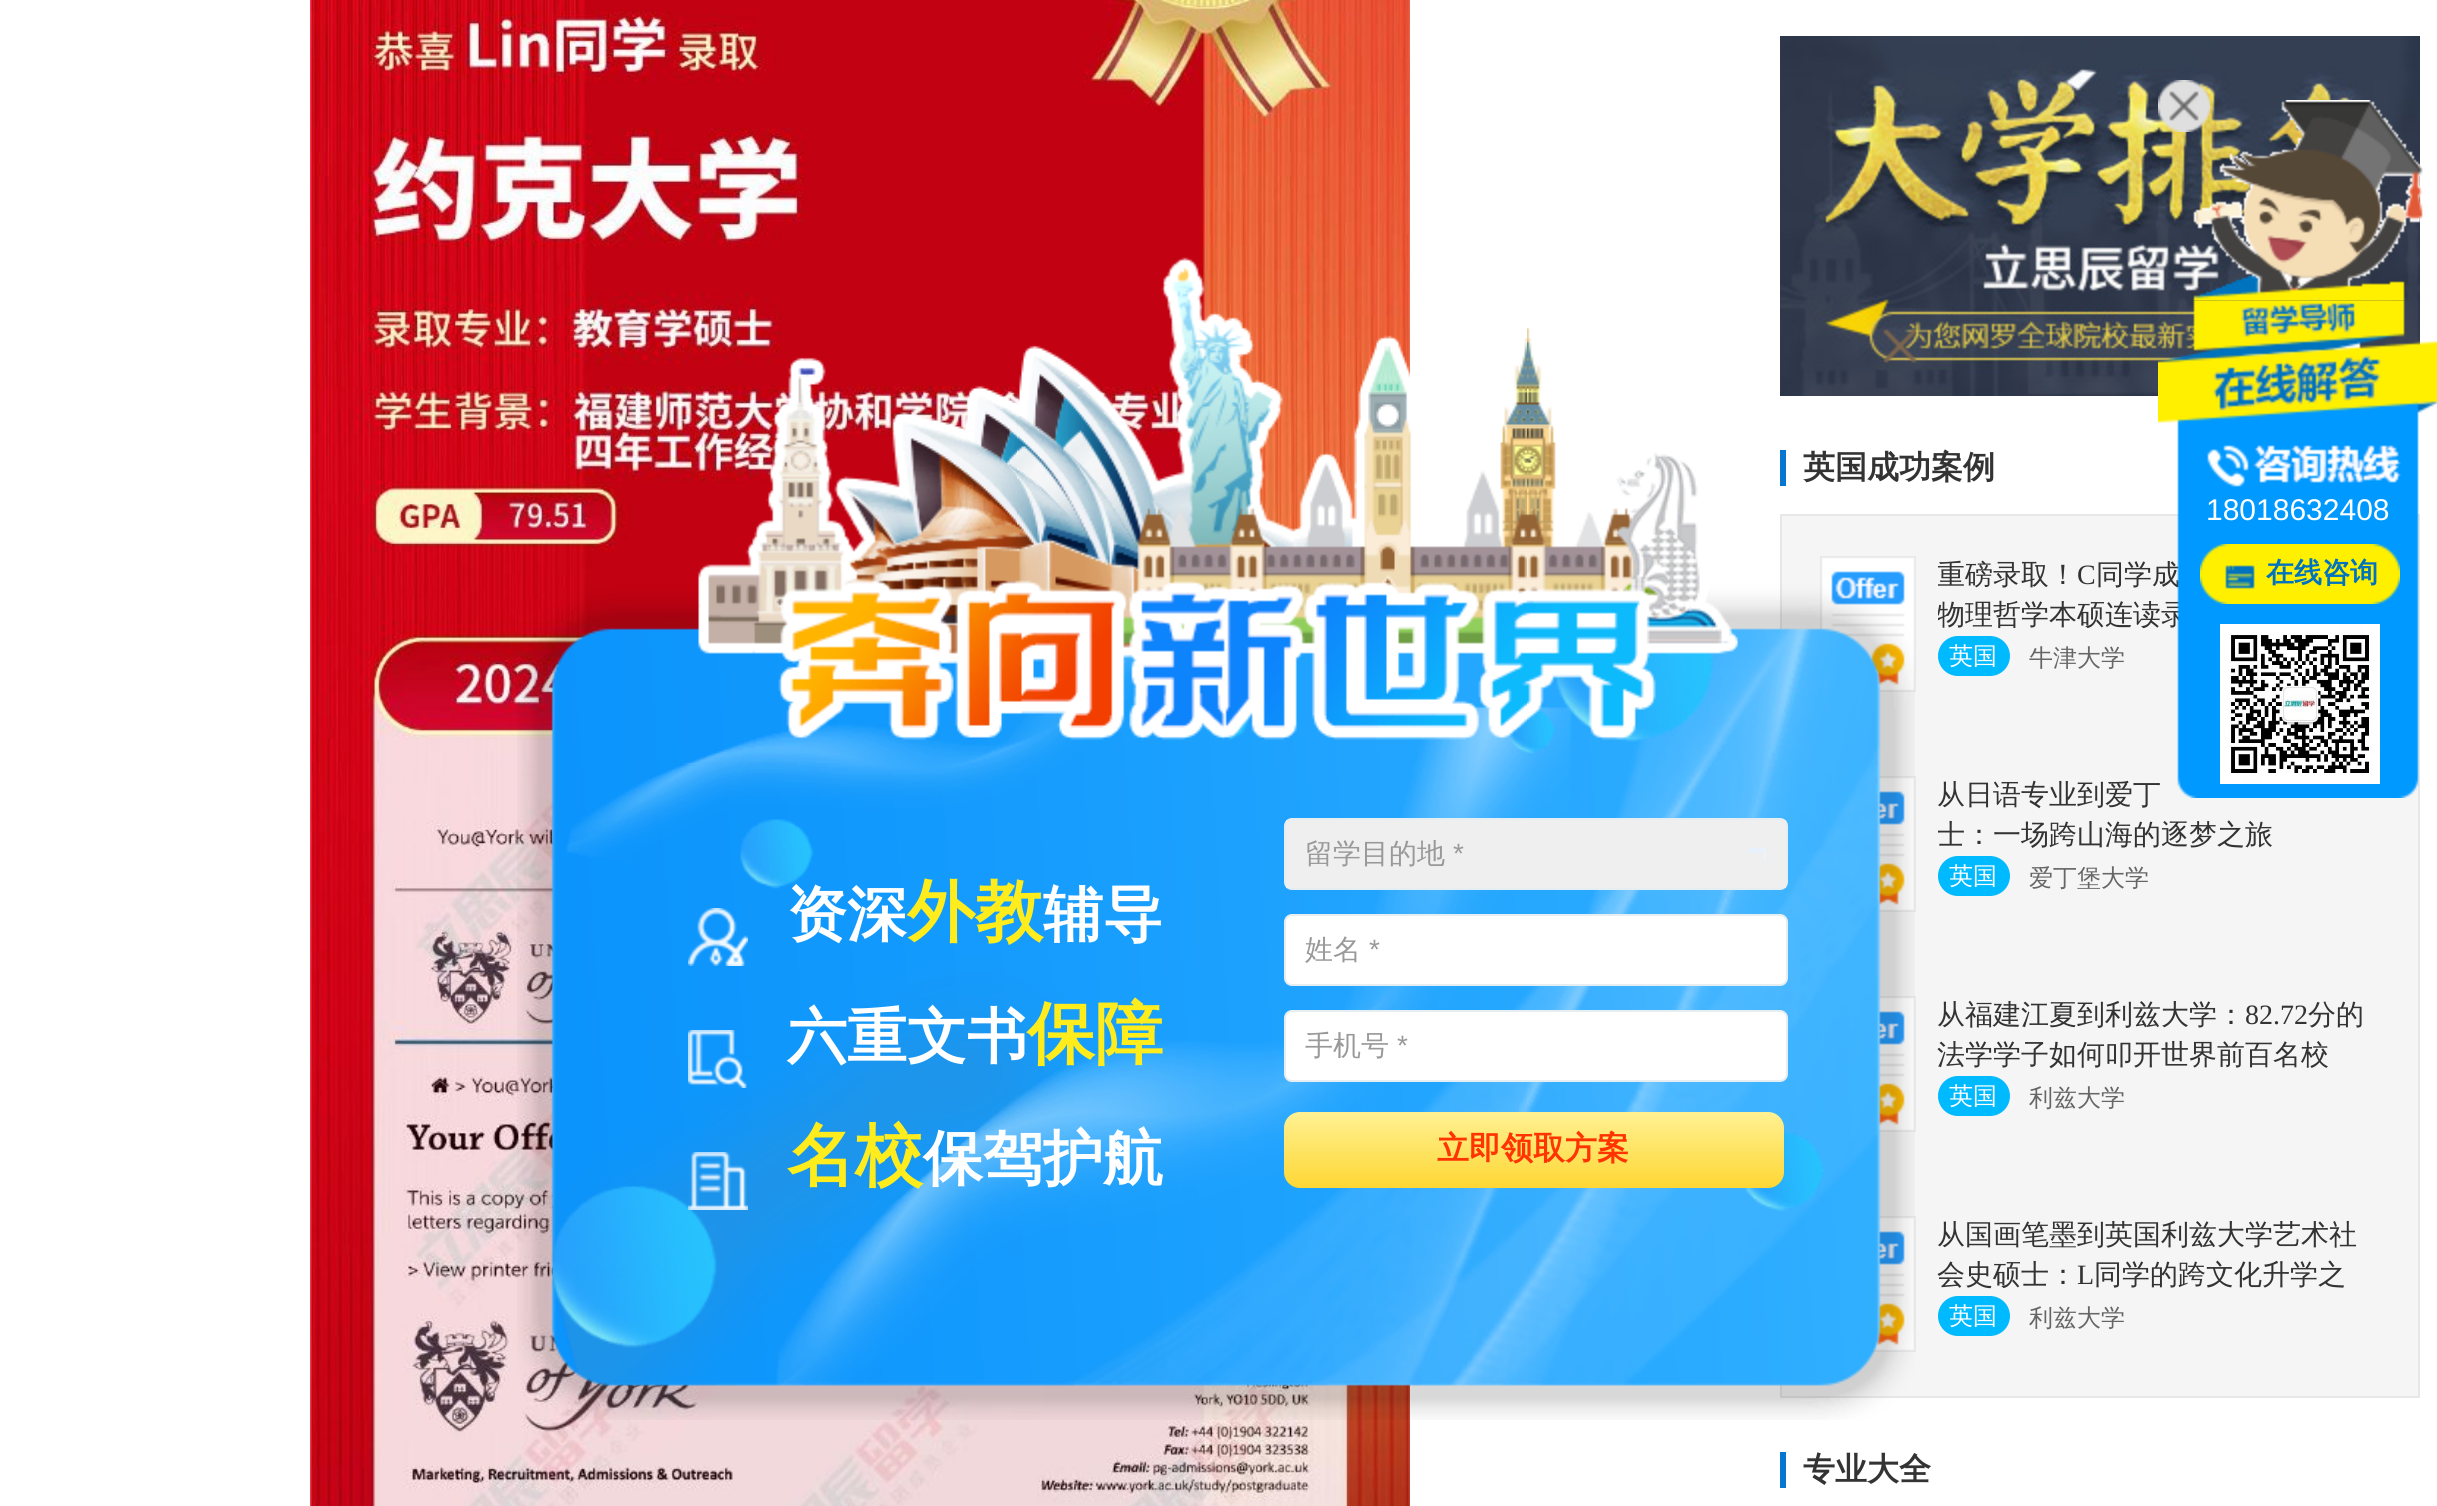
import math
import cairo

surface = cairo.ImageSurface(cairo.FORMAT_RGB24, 2437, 1506)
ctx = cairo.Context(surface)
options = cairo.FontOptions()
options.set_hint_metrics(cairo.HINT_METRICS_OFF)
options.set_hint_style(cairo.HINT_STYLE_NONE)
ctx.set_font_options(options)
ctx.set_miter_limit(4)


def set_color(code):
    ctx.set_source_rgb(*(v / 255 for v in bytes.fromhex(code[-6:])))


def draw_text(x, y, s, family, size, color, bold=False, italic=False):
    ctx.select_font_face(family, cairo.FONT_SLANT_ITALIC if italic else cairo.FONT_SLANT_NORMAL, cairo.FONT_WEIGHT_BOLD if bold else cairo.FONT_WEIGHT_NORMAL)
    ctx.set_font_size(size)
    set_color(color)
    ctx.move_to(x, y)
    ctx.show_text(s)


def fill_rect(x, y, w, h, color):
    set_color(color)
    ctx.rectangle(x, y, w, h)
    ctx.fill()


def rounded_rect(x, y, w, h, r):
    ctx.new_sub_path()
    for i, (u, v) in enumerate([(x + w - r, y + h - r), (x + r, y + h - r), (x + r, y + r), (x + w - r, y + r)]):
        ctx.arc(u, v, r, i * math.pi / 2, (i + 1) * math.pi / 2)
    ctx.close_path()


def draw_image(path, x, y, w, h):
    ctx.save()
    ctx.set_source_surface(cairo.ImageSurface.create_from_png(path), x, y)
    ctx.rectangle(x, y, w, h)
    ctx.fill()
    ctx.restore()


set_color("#ffffff")
ctx.paint()
draw_image("assets/img1.png", 310, 0, 1100, 1506)
draw_image("assets/img2.png", 1780, 36, 640, 360)
fill_rect(1780, 450, 6, 36, "#0577d1")
draw_text(1803, 478, "英国成功案例", "WenQuanYi Zen Hei", 32, "#333333", bold=True)
fill_rect(1782, 516, 636, 880, "#f5f5f5")
fill_rect(1780, 514, 640, 2, "#e7e7e7")
fill_rect(1780, 1396, 640, 2, "#e7e7e7")
draw_image("assets/img3.png", 1820, 556, 96, 136)
fill_rect(2418, 516, 2, 880, "#e7e7e7")
fill_rect(1780, 516, 2, 114, "#e7e7e7")
ctx.save()
ctx.rectangle(1938, 556, 440, 80)
ctx.clip()
draw_text(1937, 584, "重磅录取！", "WenQuanYi Zen Hei Medium", 28, "#333333")
ctx.restore()
draw_text(2077, 584, "C", "Liberation Serif", 28, "#333333")
draw_text(2096, 584, "同学成", "WenQuanYi Zen Hei Medium", 28, "#333333")
ctx.save()
ctx.rectangle(1938, 556, 440, 80)
ctx.clip()
draw_text(1937, 624, "物理哲学本硕连读录", "WenQuanYi Zen Hei Medium", 28, "#333333")
ctx.restore()
set_color("#00baff")
rounded_rect(1939, 637, 70, 38, 19)
ctx.fill_preserve()
ctx.stroke()
draw_text(1949, 664, "英国", "WenQuanYi Zen Hei Medium", 24, "#ffffff")
draw_text(2029, 666, "牛津大学", "WenQuanYi Zen Hei Medium", 24, "#666666")
draw_image("assets/img4.png", 1879, 776, 37, 136)
draw_text(1937, 804, "从日语专业到爱丁", "WenQuanYi Zen Hei Medium", 28, "#333333")
ctx.save()
ctx.rectangle(1938, 776, 440, 80)
ctx.clip()
draw_text(1937, 844, "士：一场跨山海的逐梦之旅", "WenQuanYi Zen Hei Medium", 28, "#333333")
ctx.restore()
set_color("#00baff")
rounded_rect(1939, 857, 70, 38, 19)
ctx.fill_preserve()
ctx.stroke()
draw_text(1949, 884, "英国", "WenQuanYi Zen Hei Medium", 24, "#ffffff")
draw_text(2029, 886, "爱丁堡大学", "WenQuanYi Zen Hei Medium", 24, "#666666")
draw_image("assets/img4.png", 1879, 996, 37, 136)
draw_text(1937, 1024, "从福建江夏到利兹大学：", "WenQuanYi Zen Hei Medium", 28, "#333333")
draw_text(2245, 1024, "82.72", "Liberation Serif", 28, "#333333")
draw_text(2308, 1024, "分的", "WenQuanYi Zen Hei Medium", 28, "#333333")
draw_text(1937, 1064, "法学学子如何叩开世界前百名校", "WenQuanYi Zen Hei Medium", 28, "#333333")
set_color("#00baff")
rounded_rect(1939, 1077, 70, 38, 19)
ctx.fill_preserve()
ctx.stroke()
draw_text(1949, 1104, "英国", "WenQuanYi Zen Hei Medium", 24, "#ffffff")
draw_text(2029, 1106, "利兹大学", "WenQuanYi Zen Hei Medium", 24, "#666666")
draw_image("assets/img5.png", 1871, 1216, 45, 136)
fill_rect(1780, 1384, 2, 12, "#e7e7e7")
draw_text(1937, 1244, "从国画笔墨到英国利兹大学艺术社", "WenQuanYi Zen Hei Medium", 28, "#333333")
draw_text(1937, 1284, "会史硕士：", "WenQuanYi Zen Hei Medium", 28, "#333333")
draw_text(2077, 1284, "L", "Liberation Serif", 28, "#333333")
draw_text(2094, 1284, "同学的跨文化升学之", "WenQuanYi Zen Hei Medium", 28, "#333333")
set_color("#00baff")
rounded_rect(1939, 1297, 70, 38, 19)
ctx.fill_preserve()
ctx.stroke()
draw_text(1949, 1324, "英国", "WenQuanYi Zen Hei Medium", 24, "#ffffff")
draw_text(2029, 1326, "利兹大学", "WenQuanYi Zen Hei Medium", 24, "#666666")
fill_rect(1780, 1452, 6, 36, "#0577d1")
draw_text(1803, 1480, "专业大全", "WenQuanYi Zen Hei", 32, "#333333", bold=True)
draw_image("assets/img6.png", 2158, 299, 279, 499)
draw_image("assets/img8.png", 2193, 100, 230, 200)
draw_image("assets/img7.png", 2158, 80, 52, 52)
draw_text(2206, 520, "18018632408", "Liberation Sans", 30, "#ffffff")
draw_image("assets/img9.png", 2200, 544, 200, 60)
draw_text(2266, 582, "在线咨询", "WenQuanYi Zen Hei", 28, "#0073bf", bold=True)
draw_image("assets/img10.png", 2220, 624, 160, 160)
draw_image("assets/img11.png", 517, 257, 1398, 1163)
draw_image("assets/img12.png", 1883, 329, 34, 34)
draw_image("assets/img13.png", 688, 908, 60, 58)
draw_text(787, 935, "资深", "WenQuanYi Zen Hei", 60, "#ffffff", bold=True)
draw_text(907, 935, "外教", "WenQuanYi Zen Hei", 68, "#ffec1c", bold=True)
draw_text(1043, 935, "辅导", "WenQuanYi Zen Hei", 60, "#ffffff", bold=True)
draw_image("assets/img14.png", 688, 1030, 59, 58)
draw_text(787, 1057, "六重文书", "WenQuanYi Zen Hei", 60, "#ffffff", bold=True)
draw_text(1027, 1057, "保障", "WenQuanYi Zen Hei", 68, "#ffec1c", bold=True)
draw_image("assets/img15.png", 688, 1152, 60, 58)
draw_text(787, 1179, "名校", "WenQuanYi Zen Hei", 68, "#ffec1c", bold=True)
draw_text(923, 1179, "保驾护航", "WenQuanYi Zen Hei", 60, "#ffffff", bold=True)
rounded_rect(1285, 819, 502, 70, 7)
set_color("#e7eef1")
ctx.stroke()
fill_rect(1286, 820, 500, 68, "#efefef")
draw_text(1305, 863, "留学目的地", "WenQuanYi Zen Hei Medium", 28, "#999999")
draw_text(1453, 863, "*", "Liberation Sans", 28, "#999999")
draw_image("assets/img16.png", 1748, 848, 18, 12)
set_color("#ffffff")
rounded_rect(1285, 915, 502, 70, 7)
ctx.fill_preserve()
set_color("#e7eef1")
ctx.stroke()
draw_text(1305, 959, "姓名", "WenQuanYi Zen Hei Medium", 28, "#999999")
draw_text(1369, 959, "*", "Liberation Sans", 28, "#999999")
set_color("#ffffff")
rounded_rect(1285, 1011, 502, 70, 7)
ctx.fill_preserve()
set_color("#e7eef1")
ctx.stroke()
draw_text(1305, 1055, "手机号", "WenQuanYi Zen Hei Medium", 28, "#999999")
draw_text(1397, 1055, "*", "Liberation Sans", 28, "#999999")
gradient = cairo.LinearGradient(1534, 1112, 1534, 1188)
gradient.add_color_stop_rgba(0, 1, 0.945, 0.576, 1)
gradient.add_color_stop_rgba(1, 0.996, 0.843, 0.204, 1)
ctx.set_source(gradient)
rounded_rect(1284, 1112, 500, 76, 16)
ctx.fill()
draw_text(1437, 1159, "立即领取方案", "WenQuanYi Zen Hei", 32, "#ff3400", bold=True)
surface.write_to_png("output.png")
